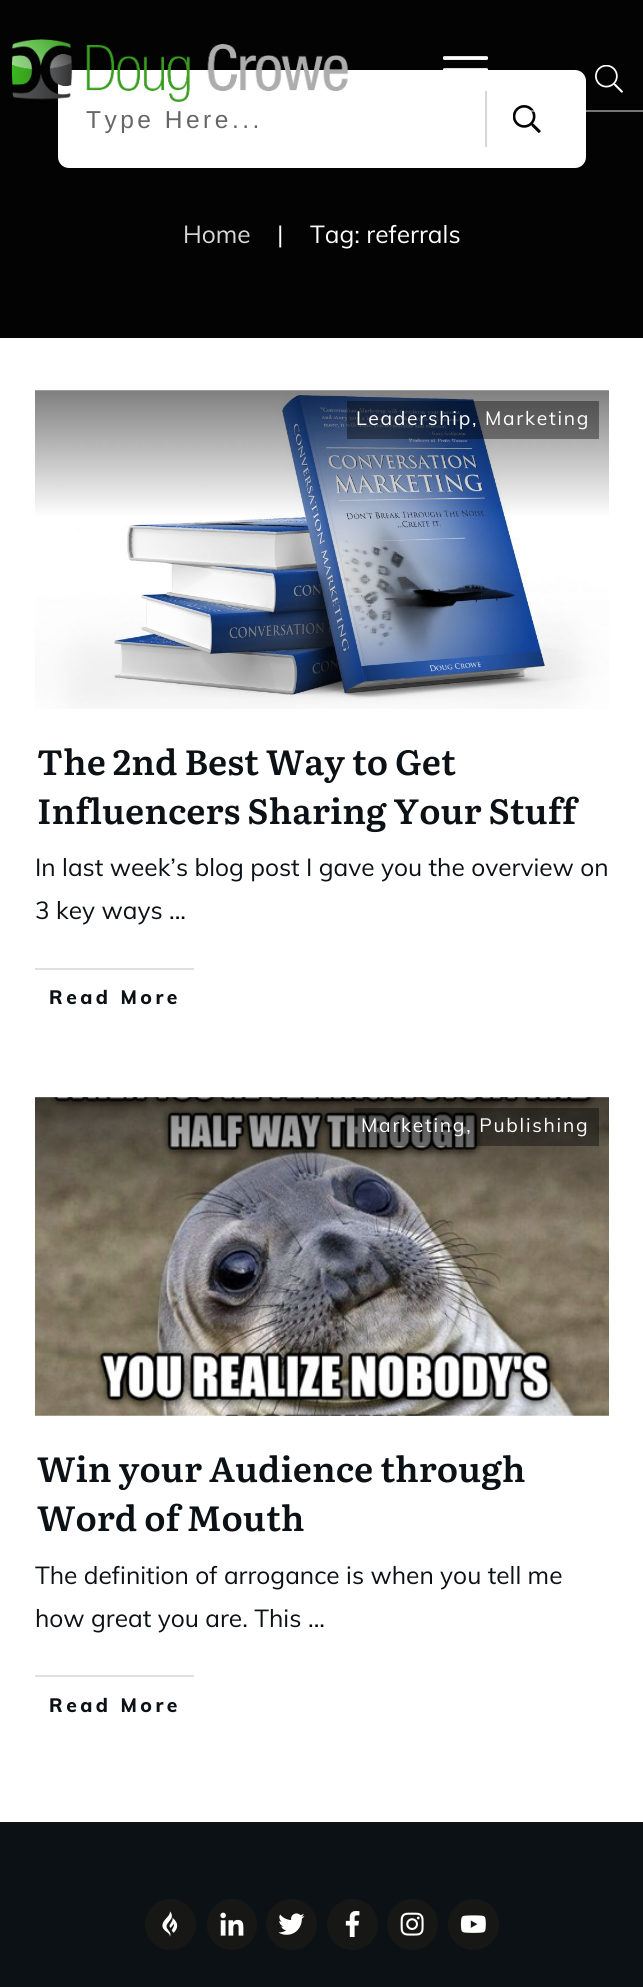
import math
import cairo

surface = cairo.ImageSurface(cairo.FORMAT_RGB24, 643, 1987)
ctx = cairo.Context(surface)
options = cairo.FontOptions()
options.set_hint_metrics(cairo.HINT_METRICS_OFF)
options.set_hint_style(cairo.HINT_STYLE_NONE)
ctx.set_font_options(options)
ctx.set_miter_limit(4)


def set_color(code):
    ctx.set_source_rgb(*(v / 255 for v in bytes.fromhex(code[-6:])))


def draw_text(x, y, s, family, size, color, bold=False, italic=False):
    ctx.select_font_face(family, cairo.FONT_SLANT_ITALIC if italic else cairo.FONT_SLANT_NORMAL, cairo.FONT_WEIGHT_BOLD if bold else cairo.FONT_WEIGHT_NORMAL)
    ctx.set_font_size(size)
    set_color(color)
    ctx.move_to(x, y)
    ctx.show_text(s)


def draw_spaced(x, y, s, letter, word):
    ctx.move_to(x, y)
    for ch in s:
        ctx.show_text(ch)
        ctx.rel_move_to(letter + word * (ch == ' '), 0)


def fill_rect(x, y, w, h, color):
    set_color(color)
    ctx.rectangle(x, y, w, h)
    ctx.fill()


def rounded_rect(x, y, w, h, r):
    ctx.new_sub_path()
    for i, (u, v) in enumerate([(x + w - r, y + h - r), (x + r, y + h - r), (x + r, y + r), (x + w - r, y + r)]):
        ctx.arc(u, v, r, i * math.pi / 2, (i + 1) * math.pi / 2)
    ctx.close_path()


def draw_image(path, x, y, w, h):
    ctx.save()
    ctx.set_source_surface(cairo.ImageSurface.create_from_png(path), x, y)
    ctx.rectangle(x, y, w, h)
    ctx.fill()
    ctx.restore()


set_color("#ffffff")
ctx.paint()
fill_rect(0, 0, 643, 338, "#030303")
set_color("#ffffff")
rounded_rect(58, 70, 528, 98, 11)
ctx.fill()
draw_image("assets/img1.png", 11, 39, 338, 63)
draw_image("assets/img2.png", 443, 56, 45, 14)
draw_image("assets/img4.png", 513, 105, 28, 28)
ctx.set_source_rgba(1, 1, 1, 0.45)
ctx.rectangle(529, 110, 114, 2)
ctx.fill()
draw_image("assets/img3.png", 595, 65, 28, 28)
ctx.select_font_face("Liberation Sans")
ctx.set_font_size(24.5)
set_color("#666666")
draw_spaced(86, 128, "Type Here...", 3.5, 0)
fill_rect(485, 91, 2, 56, "#d6d6d6")
draw_text(183, 243, "Home", "Muli", 24.5, "#d9d9d9")
draw_text(277, 243, "|", "Muli", 24.5, "#ffffff")
draw_text(310, 243, "Tag: referrals", "Muli", 24.5, "#ffffff")
draw_image("assets/img5.png", 35, 390, 574, 319)
ctx.set_source_rgba(0, 0, 0, 0.4)
ctx.rectangle(347, 401, 252, 38)
ctx.fill()
ctx.set_font_size(19.25)
set_color("#ffffff")
draw_spaced(356, 425, "Leadership, Marketing", 1.75, 0)
draw_text(37, 775, "The 2nd Best Way to Get", "Literata SemiBold", 35, "#0c1115")
draw_text(37, 824, "Influencers Sharing Your Stuff", "Literata SemiBold", 35, "#0c1115")
draw_text(35, 876, "In last week’s blog post I gave you the overview on", "Muli", 24.5, "#0c1115")
draw_text(35, 919, "3 key ways", "Muli", 24.5, "#0c1115")
draw_text(169, 919, "...", "Muli", 24.5, "#030303")
fill_rect(35, 968, 159, 2, "#e0e0e0")
ctx.select_font_face("Muli ExtraBold")
ctx.set_font_size(19.25)
set_color("#0c1115")
draw_spaced(49, 1004, "Read More", 3.5, 0)
draw_image("assets/img6.png", 35, 1097, 574, 319)
ctx.set_source_rgba(0, 0, 0, 0.4)
ctx.rectangle(354, 1108, 245, 38)
ctx.fill()
ctx.select_font_face("Muli")
set_color("#ffffff")
draw_spaced(361, 1132, "Marketing, Publishing", 1.75, 0)
draw_text(37, 1482, "Win your Audience through", "Literata SemiBold", 35, "#0c1115")
draw_text(37, 1531, "Word of Mouth", "Literata SemiBold", 35, "#0c1115")
draw_text(35, 1584, "The definition of arrogance is when you tell me", "Muli", 24.5, "#0c1115")
draw_text(35, 1627, "how great you are. This", "Muli", 24.5, "#0c1115")
draw_text(308, 1627, "...", "Muli", 24.5, "#030303")
fill_rect(35, 1675, 159, 2, "#e0e0e0")
ctx.select_font_face("Muli ExtraBold")
ctx.set_font_size(19.25)
set_color("#0c1115")
draw_spaced(49, 1712, "Read More", 3.5, 0)
fill_rect(0, 1822, 643, 165, "#0c1115")
set_color("#171716")
ctx.new_path()
ctx.arc(170.5, 1924.5, 25.5, 0, 2 * math.pi)
ctx.fill()
draw_image("assets/img7.png", 162, 1911, 16, 26)
rounded_rect(207, 1899, 50, 51, 25)
ctx.fill()
draw_image("assets/img8.png", 220, 1912, 24, 24)
ctx.arc(291.5, 1924.5, 25.5, 0, 2 * math.pi)
ctx.fill()
draw_image("assets/img9.png", 278, 1913, 27, 22)
ctx.arc(352.5, 1924.5, 25.5, 0, 2 * math.pi)
ctx.fill()
draw_image("assets/img10.png", 345, 1911, 15, 26)
ctx.arc(412.5, 1924.5, 25.5, 0, 2 * math.pi)
ctx.fill()
draw_image("assets/img11.png", 400, 1912, 24, 24)
ctx.arc(473.5, 1924.5, 25.5, 0, 2 * math.pi)
ctx.fill()
draw_image("assets/img12.png", 460, 1915, 26, 18)
surface.write_to_png("output.png")
